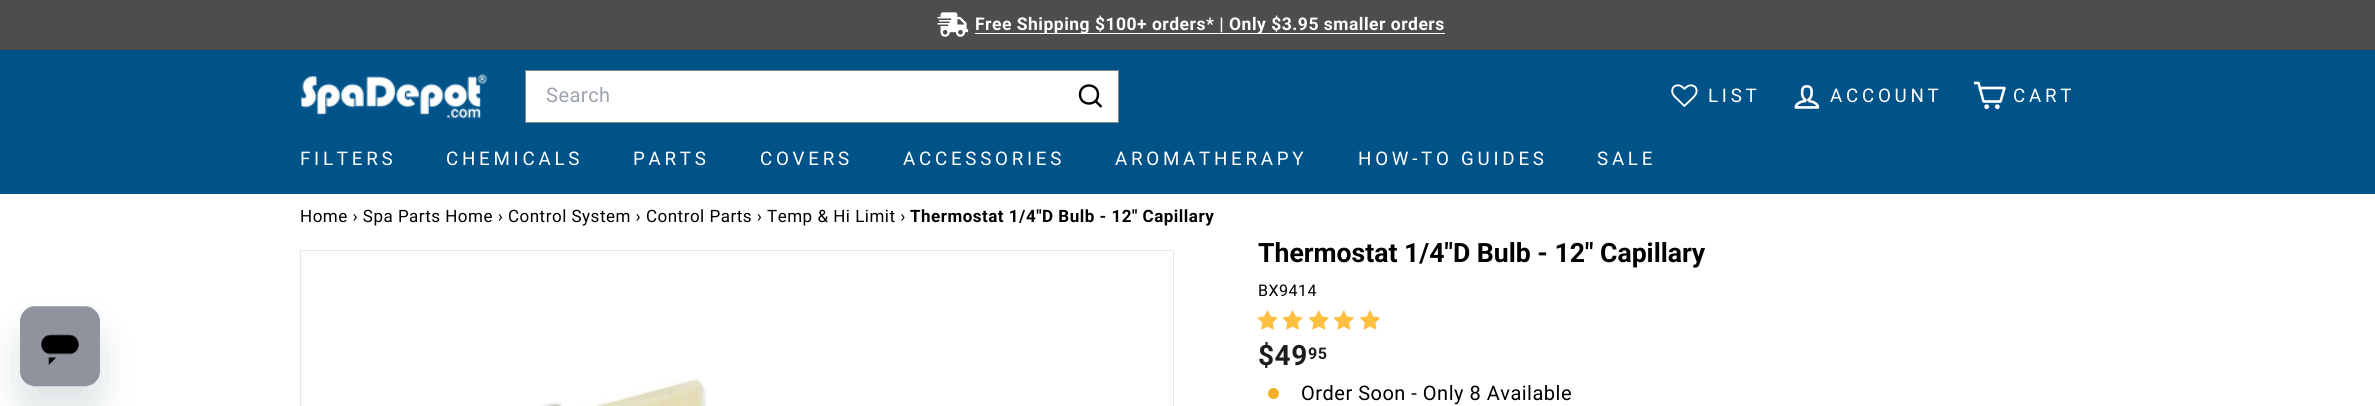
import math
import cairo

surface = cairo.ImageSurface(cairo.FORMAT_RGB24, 2375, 406)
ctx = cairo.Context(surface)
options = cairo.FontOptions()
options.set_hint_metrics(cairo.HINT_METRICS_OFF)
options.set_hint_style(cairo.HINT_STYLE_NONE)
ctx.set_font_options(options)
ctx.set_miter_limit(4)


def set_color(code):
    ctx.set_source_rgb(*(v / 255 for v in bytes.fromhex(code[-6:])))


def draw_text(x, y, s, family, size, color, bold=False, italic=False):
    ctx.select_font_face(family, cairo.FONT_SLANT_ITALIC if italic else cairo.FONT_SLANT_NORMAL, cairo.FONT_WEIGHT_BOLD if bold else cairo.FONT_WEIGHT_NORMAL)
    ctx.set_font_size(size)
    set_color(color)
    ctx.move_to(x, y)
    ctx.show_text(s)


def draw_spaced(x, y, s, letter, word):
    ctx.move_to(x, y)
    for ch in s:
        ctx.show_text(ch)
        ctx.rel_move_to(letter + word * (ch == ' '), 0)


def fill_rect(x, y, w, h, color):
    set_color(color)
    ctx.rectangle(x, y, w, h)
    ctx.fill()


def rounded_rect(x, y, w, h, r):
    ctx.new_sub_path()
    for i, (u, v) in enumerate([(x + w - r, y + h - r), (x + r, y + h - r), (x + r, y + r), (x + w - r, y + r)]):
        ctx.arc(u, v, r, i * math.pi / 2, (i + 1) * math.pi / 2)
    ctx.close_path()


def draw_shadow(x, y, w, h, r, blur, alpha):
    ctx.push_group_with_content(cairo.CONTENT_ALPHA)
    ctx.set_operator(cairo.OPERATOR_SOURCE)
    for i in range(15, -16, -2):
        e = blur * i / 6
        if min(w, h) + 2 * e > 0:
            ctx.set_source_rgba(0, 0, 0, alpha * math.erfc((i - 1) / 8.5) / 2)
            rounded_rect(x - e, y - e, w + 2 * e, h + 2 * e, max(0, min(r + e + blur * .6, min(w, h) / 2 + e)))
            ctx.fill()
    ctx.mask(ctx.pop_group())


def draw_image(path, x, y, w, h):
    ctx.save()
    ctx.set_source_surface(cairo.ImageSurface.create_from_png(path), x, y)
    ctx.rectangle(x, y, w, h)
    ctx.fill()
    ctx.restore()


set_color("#ffffff")
ctx.paint()
set_color("#17494d")
draw_shadow(20, 331, 80, 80, 15, 19, 0.15)
draw_image("assets/img1.png", 20, 306, 80, 81)
fill_rect(0, 0, 2375, 50, "#4d4d4d")
draw_image("assets/img2.png", 937, 12, 32, 25)
fill_rect(975, 33, 470, 1, "#ffffff")
ctx.select_font_face("Roboto", cairo.FONT_SLANT_NORMAL, cairo.FONT_WEIGHT_BOLD)
ctx.set_font_size(17.5)
draw_spaced(975, 30, "Free Shipping $100+ orders* | Only $3.95 smaller orders", 0.5, 0)
fill_rect(0, 50, 2375, 144, "#005389")
draw_image("assets/img3.png", 300, 73, 188, 46)
set_color("#ffffff")
ctx.rectangle(525.5, 70.5, 593, 52)
ctx.fill_preserve()
set_color("#888888")
ctx.set_line_width(1)
ctx.stroke()
ctx.select_font_face("Roboto")
ctx.set_font_size(20)
set_color("#9ca3af")
draw_spaced(546, 102, "Search", 0.5, 0)
ctx.new_path()
ctx.move_to(1098, 94.5)
ctx.curve_to(1098, 106.5, 1080, 106.5, 1080, 94.5)
ctx.curve_to(1080, 82.5, 1098, 82.5, 1098, 94.5)
ctx.move_to(1101.5, 107)
ctx.line_to(1095.5, 101)
set_color("#000000")
ctx.set_line_width(2.4)
ctx.set_line_join(cairo.LINE_JOIN_ROUND)
ctx.stroke()
draw_image("assets/img4.png", 1671, 84, 27, 23)
ctx.set_font_size(18.75)
set_color("#ffffff")
draw_spaced(1708, 102, "LIST", 3.75, 0)
draw_image("assets/img5.png", 1794, 85, 26, 24)
draw_spaced(1830, 102, "ACCOUNT", 3.75, 0)
ctx.new_path()
ctx.move_to(1980, 88)
ctx.line_to(2004.5, 88)
ctx.line_to(2000.5, 101.5)
ctx.line_to(1983.5, 101.5)
ctx.line_to(1978.5, 83)
ctx.line_to(1974, 83)
ctx.set_line_width(2.6)
ctx.stroke()
ctx.arc(1986.7, 106.7, 1.1, 0, 2 * math.pi)
ctx.set_line_join(cairo.LINE_JOIN_MITER)
ctx.stroke()
ctx.arc(1997.3, 106.7, 1.1, 0, 2 * math.pi)
ctx.stroke()
draw_spaced(2013, 102, "CART", 3.75, 0)
draw_spaced(300, 165, "FILTERS", 3.75, 0)
draw_spaced(446, 165, "CHEMICALS", 3.75, 0)
draw_spaced(633, 165, "PARTS", 3.75, 0)
draw_spaced(760, 165, "COVERS", 3.75, 0)
draw_spaced(903, 165, "ACCESSORIES", 3.75, 0)
draw_spaced(1115, 165, "AROMATHERAPY", 3.75, 0)
draw_spaced(1358, 165, "HOW-TO GUIDES", 3.75, 0)
draw_spaced(1597, 165, "SALE", 3.75, 0)
ctx.set_font_size(17)
set_color("#000000")
draw_spaced(300, 222, "Home › Spa Parts Home › Control System › Control Parts › Temp & Hi Limit ›", 0.5, 0)
ctx.select_font_face("Roboto", cairo.FONT_SLANT_NORMAL, cairo.FONT_WEIGHT_BOLD)
draw_spaced(910, 222, "Thermostat 1/4\"D Bulb - 12\" Capillary", 0.5, 0)
ctx.rectangle(300.5, 250.5, 873, 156)
set_color("#e8e8e1")
ctx.set_line_width(1)
ctx.stroke()
draw_image("assets/img6.png", 540, 378, 167, 28)
draw_text(1258, 262, "Thermostat 1/4\"D Bulb - 12\" Capillary", "Roboto", 26.6, "#000000", bold=True)
ctx.select_font_face("Roboto")
ctx.set_font_size(16)
draw_spaced(1258, 296, "BX9414", 0.5, 0)
draw_image("assets/img7.png", 1257, 310, 21, 20)
draw_image("assets/img7.png", 1282, 310, 21, 20)
draw_image("assets/img8.png", 1308, 310, 21, 20)
draw_image("assets/img8.png", 1333, 310, 21, 20)
draw_image("assets/img9.png", 1360, 310, 20, 20)
ctx.select_font_face("Roboto", cairo.FONT_SLANT_NORMAL, cairo.FONT_WEIGHT_BOLD)
ctx.set_font_size(28)
set_color("#1c1d1d")
draw_spaced(1258, 365, "$49", 0.5, 0)
ctx.set_font_size(16)
draw_spaced(1308, 359, "95", 0.5, 0)
set_color("#f4af29")
ctx.new_path()
ctx.arc(1273.5, 393.5, 5.5, 0, 2 * math.pi)
ctx.fill()
ctx.select_font_face("Roboto")
ctx.set_font_size(20)
set_color("#000000")
draw_spaced(1301, 400, "Order Soon - Only 8 Available", 0.5, 0)
surface.write_to_png("output.png")
